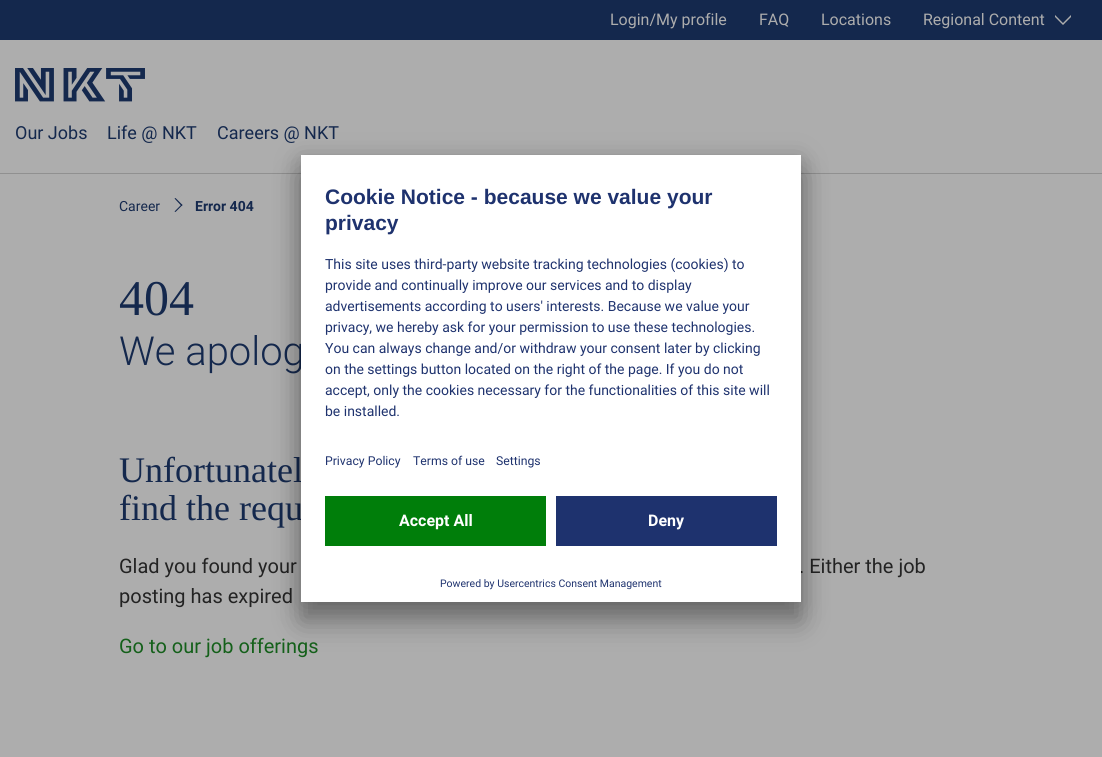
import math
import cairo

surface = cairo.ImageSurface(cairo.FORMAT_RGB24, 1102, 757)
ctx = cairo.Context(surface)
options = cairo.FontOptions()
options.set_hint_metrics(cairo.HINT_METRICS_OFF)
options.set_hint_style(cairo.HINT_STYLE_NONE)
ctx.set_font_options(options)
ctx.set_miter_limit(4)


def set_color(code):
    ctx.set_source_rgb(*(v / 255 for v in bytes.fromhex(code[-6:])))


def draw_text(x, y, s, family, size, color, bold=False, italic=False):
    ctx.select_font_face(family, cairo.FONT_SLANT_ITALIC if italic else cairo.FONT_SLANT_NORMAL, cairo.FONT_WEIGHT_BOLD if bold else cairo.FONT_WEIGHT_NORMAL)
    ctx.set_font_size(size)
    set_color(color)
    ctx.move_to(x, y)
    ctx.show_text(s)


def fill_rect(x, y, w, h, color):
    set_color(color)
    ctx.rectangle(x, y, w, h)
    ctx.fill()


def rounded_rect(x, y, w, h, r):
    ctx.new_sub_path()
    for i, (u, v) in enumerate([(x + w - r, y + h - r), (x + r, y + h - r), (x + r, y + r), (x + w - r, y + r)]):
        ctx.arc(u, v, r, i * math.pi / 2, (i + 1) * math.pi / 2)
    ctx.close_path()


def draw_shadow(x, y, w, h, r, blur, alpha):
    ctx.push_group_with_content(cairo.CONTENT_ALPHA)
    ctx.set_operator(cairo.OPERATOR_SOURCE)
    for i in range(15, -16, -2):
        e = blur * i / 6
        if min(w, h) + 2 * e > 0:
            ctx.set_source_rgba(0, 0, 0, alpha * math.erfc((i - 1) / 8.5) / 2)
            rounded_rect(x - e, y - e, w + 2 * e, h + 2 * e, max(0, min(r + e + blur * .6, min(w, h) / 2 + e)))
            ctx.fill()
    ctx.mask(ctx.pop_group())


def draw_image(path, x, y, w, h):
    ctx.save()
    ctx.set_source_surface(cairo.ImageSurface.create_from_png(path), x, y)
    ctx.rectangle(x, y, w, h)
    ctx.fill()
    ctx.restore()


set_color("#adadad")
ctx.paint()
fill_rect(0, 0, 1102, 40, "#14284d")
draw_text(610, 25, "Login/My profile", "Roboto", 16, "#adadad")
draw_text(759, 25, "FAQ", "Roboto", 16, "#adadad")
draw_text(821, 25, "Locations", "Roboto", 16, "#adadad")
draw_text(923, 25, "Regional Content", "Roboto", 16, "#adadad")
draw_image("assets/img1.png", 1055, 15, 16, 10)
draw_image("assets/img2.png", 15, 68, 130, 34)
draw_text(15, 139, "Our Jobs", "Roboto", 18, "#14284d")
draw_text(107, 139, "Life @ NKT", "Roboto", 18, "#14284d")
draw_text(217, 139, "Careers @ NKT", "Roboto", 18, "#14284d")
fill_rect(0, 173, 1102, 1, "#909090")
draw_text(119, 211, "Career", "Roboto", 14, "#14284d")
ctx.new_path()
ctx.move_to(175.5, 198)
ctx.line_to(182.5, 205)
ctx.line_to(181.5, 206)
ctx.line_to(174.5, 198.5)
ctx.close_path()
ctx.fill()
ctx.new_path()
ctx.move_to(181.5, 204.5)
ctx.line_to(182.5, 205)
ctx.line_to(175.5, 212)
ctx.line_to(174.5, 211.5)
ctx.close_path()
ctx.fill()
draw_text(195, 211, "Error 404", "Roboto", 14, "#14284d", bold=True)
draw_text(119, 315, "404", "Liberation Serif", 50, "#14284d")
draw_text(119, 365, "We apolog", "Roboto Light", 40, "#14284d")
draw_text(119, 482, "Unfortunatel", "Liberation Serif", 36, "#14284d")
draw_text(119, 520, "find the requ", "Liberation Serif", 36, "#14284d")
draw_text(119, 573, "Glad you found your", "Roboto", 20, "#232323")
draw_text(799, 573, ". Either the job", "Roboto", 20, "#232323")
draw_text(119, 603, "posting has expired", "Roboto", 20, "#232323")
draw_text(119, 653, "Go to our job offerings", "Roboto", 20, "#14601a")
set_color("#000000")
draw_shadow(301, 175, 500, 447, 0, 14, 0.3)
draw_shadow(301, 160, 500, 447, 0, 13, 0.22)
fill_rect(301, 155, 500, 447, "#ffffff")
draw_text(325, 204, "Cookie Notice - because we value your", "Liberation Sans", 21, "#1e326e", bold=True)
draw_text(325, 230, "privacy", "Liberation Sans", 21, "#1e326e", bold=True)
draw_text(325, 269, "This site uses third-party website tracking technologies (cookies) to", "Roboto", 14, "#1e326e")
draw_text(325, 290, "provide and continually improve our services and to display", "Roboto", 14, "#1e326e")
draw_text(325, 311, "advertisements according to users' interests. Because we value your", "Roboto", 14, "#1e326e")
draw_text(325, 332, "privacy, we hereby ask for your permission to use these technologies.", "Roboto", 14, "#1e326e")
draw_text(325, 353, "You can always change and/or withdraw your consent later by clicking", "Roboto", 14, "#1e326e")
draw_text(325, 374, "on the settings button located on the right of the page. If you do not", "Roboto", 14, "#1e326e")
draw_text(325, 395, "accept, only the cookies necessary for the functionalities of this site will", "Roboto", 14, "#1e326e")
draw_text(325, 416, "be installed.", "Roboto", 14, "#1e326e")
draw_text(325, 465, "Privacy Policy", "Roboto", 12.25, "#1e326e")
draw_text(413, 465, "Terms of use", "Roboto", 12.25, "#1e326e")
draw_text(496, 465, "Settings", "Roboto", 12.25, "#1e326e")
fill_rect(325, 496, 221, 50, "#007e0a")
draw_text(399, 526, "Accept All", "Roboto", 16, "#ffffff", bold=True)
fill_rect(556, 496, 221, 50, "#1e326e")
draw_text(648, 526, "Deny", "Roboto", 16, "#ffffff", bold=True)
draw_text(440, 587, "Powered by Usercentrics Consent Management", "Roboto", 10.5, "#1e326e")
surface.write_to_png("output.png")
